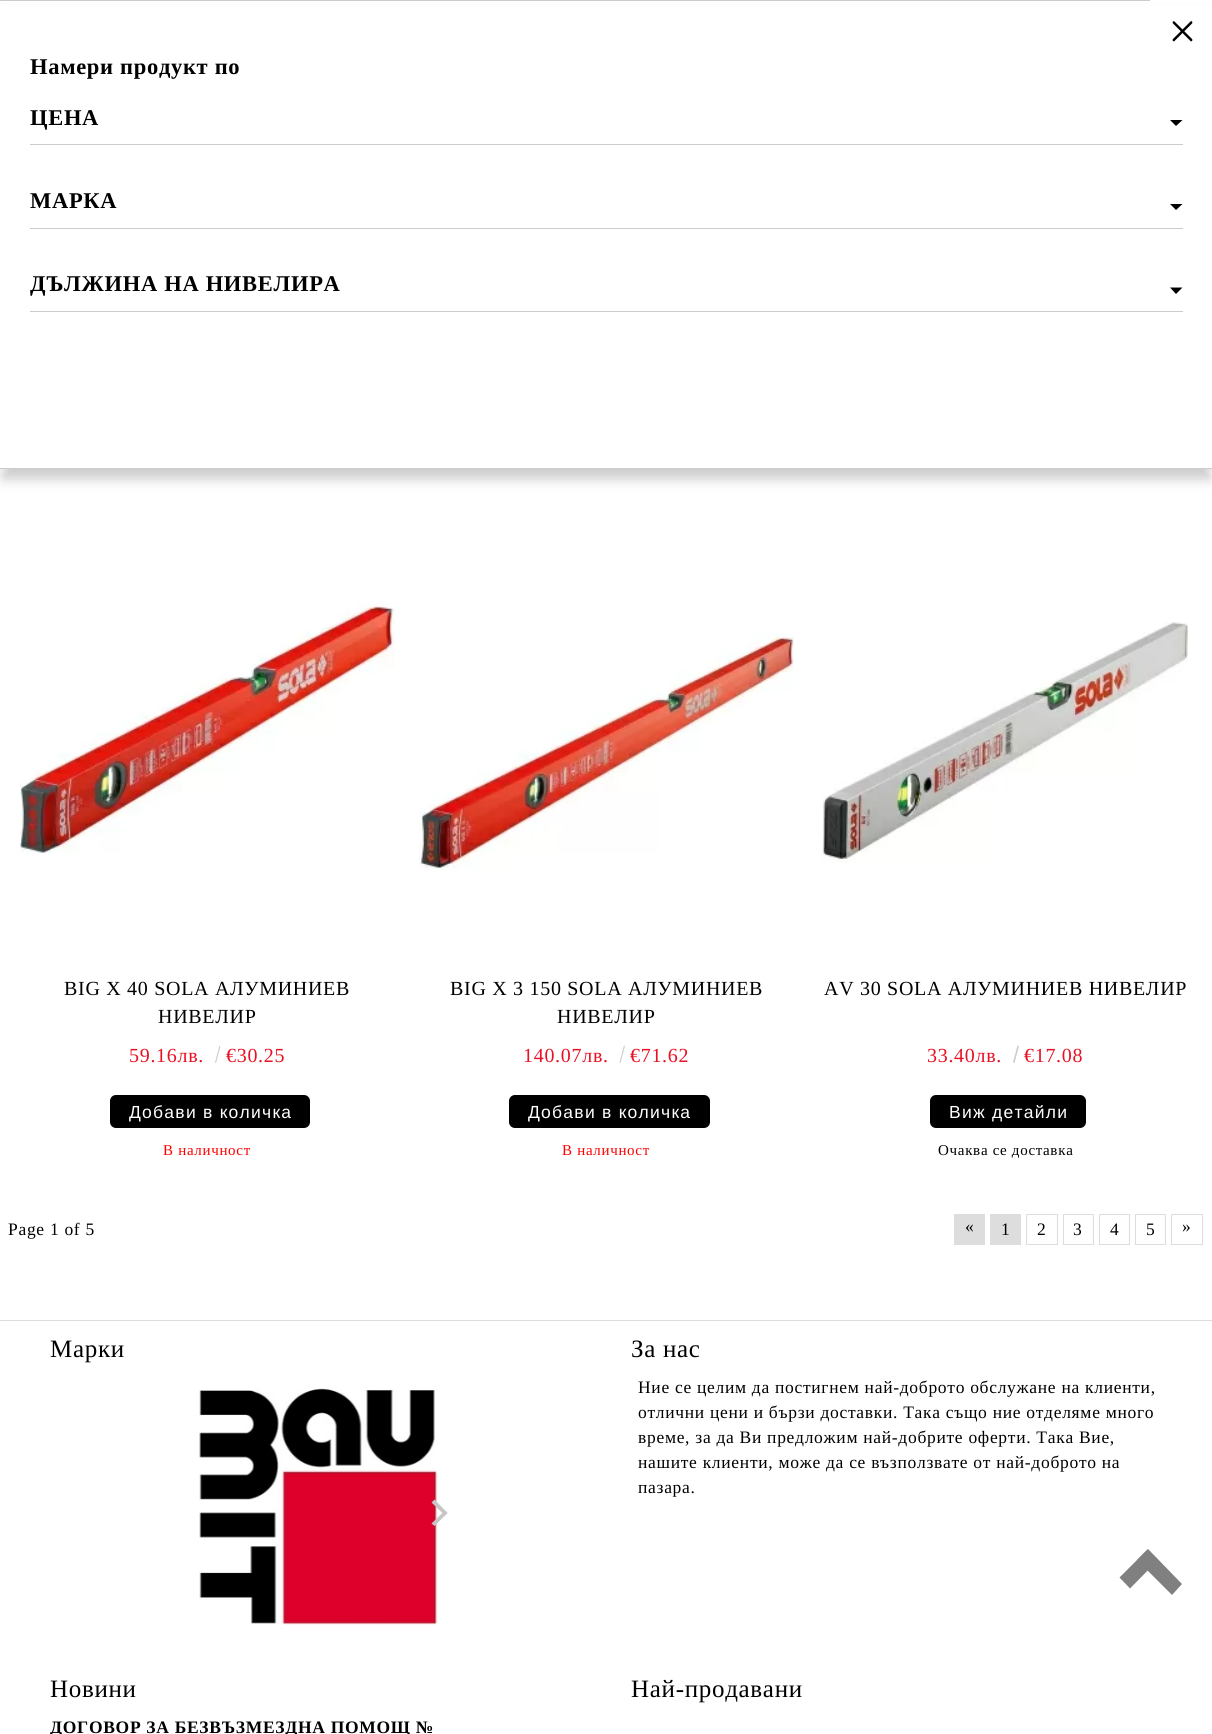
import math
import cairo

surface = cairo.ImageSurface(cairo.FORMAT_RGB24, 1212, 1734)
ctx = cairo.Context(surface)
options = cairo.FontOptions()
options.set_hint_metrics(cairo.HINT_METRICS_OFF)
options.set_hint_style(cairo.HINT_STYLE_NONE)
ctx.set_font_options(options)
ctx.set_miter_limit(4)


def set_color(code):
    ctx.set_source_rgb(*(v / 255 for v in bytes.fromhex(code[-6:])))


def draw_spaced(x, y, s, letter, word):
    ctx.move_to(x, y)
    for ch in s:
        ctx.show_text(ch)
        ctx.rel_move_to(letter + word * (ch == ' '), 0)


def fill_rect(x, y, w, h, color):
    set_color(color)
    ctx.rectangle(x, y, w, h)
    ctx.fill()


def rounded_rect(x, y, w, h, r):
    ctx.new_sub_path()
    for i, (u, v) in enumerate([(x + w - r, y + h - r), (x + r, y + h - r), (x + r, y + r), (x + w - r, y + r)]):
        ctx.arc(u, v, r, i * math.pi / 2, (i + 1) * math.pi / 2)
    ctx.close_path()


def draw_shadow(x, y, w, h, r, blur, alpha):
    ctx.push_group_with_content(cairo.CONTENT_ALPHA)
    ctx.set_operator(cairo.OPERATOR_SOURCE)
    for i in range(15, -16, -2):
        e = blur * i / 6
        if min(w, h) + 2 * e > 0:
            ctx.set_source_rgba(0, 0, 0, alpha * math.erfc((i - 1) / 8.5) / 2)
            rounded_rect(x - e, y - e, w + 2 * e, h + 2 * e, max(0, min(r + e + blur * .6, min(w, h) / 2 + e)))
            ctx.fill()
    ctx.mask(ctx.pop_group())


def draw_image(path, x, y, w, h):
    ctx.save()
    ctx.set_source_surface(cairo.ImageSurface.create_from_png(path), x, y)
    ctx.rectangle(x, y, w, h)
    ctx.fill()
    ctx.restore()


set_color("#ffffff")
ctx.paint()
set_color("#cccccc")
draw_shadow(3, 15, 1207, 464, 0, 6, 1)
fill_rect(0, 5, 1212, 463, "#ffffff")
fill_rect(0, 0, 1150, 1, "#cccccc")
fill_rect(0, 468, 1212, 1, "#cccccc")
set_color("#000000")
ctx.new_path()
ctx.move_to(1192, 21.5)
ctx.curve_to(1192.5, 22, 1192.5, 23, 1192, 23.5)
ctx.line_to(1174.5, 41)
ctx.curve_to(1174, 41.5, 1173.5, 41.5, 1173, 41)
ctx.curve_to(1172.5, 40.5, 1172.5, 39.5, 1173, 39)
ctx.line_to(1190.5, 21.5)
ctx.curve_to(1191, 21, 1191.5, 21, 1192, 21.5)
ctx.close_path()
ctx.fill()
ctx.new_path()
ctx.move_to(1173, 21.5)
ctx.curve_to(1173.5, 21, 1174, 21, 1174.5, 21.5)
ctx.line_to(1192, 39)
ctx.curve_to(1192.5, 39.5, 1192.5, 40.5, 1192, 41)
ctx.curve_to(1191.5, 41.5, 1191, 41.5, 1190.5, 41)
ctx.line_to(1173, 23.5)
ctx.curve_to(1172.5, 23, 1172.5, 22, 1173, 21.5)
ctx.close_path()
ctx.fill()
ctx.select_font_face("Liberation Serif", cairo.FONT_SLANT_NORMAL, cairo.FONT_WEIGHT_BOLD)
ctx.set_font_size(22.5)
draw_spaced(30, 74, "Намери продукт по", 0.7, 0)
fill_rect(30, 144, 1153, 1, "#cccccc")
set_color("#000000")
draw_spaced(30, 125, "ЦЕНА", 0.7, 0)
ctx.new_path()
ctx.move_to(1170, 120)
ctx.line_to(1182.5, 120)
ctx.line_to(1176, 126)
ctx.close_path()
ctx.fill()
fill_rect(30, 228, 1153, 1, "#cccccc")
set_color("#000000")
draw_spaced(30, 208, "МАРКА", 0.7, 0)
ctx.new_path()
ctx.move_to(1170, 204)
ctx.line_to(1182.5, 204)
ctx.line_to(1176, 210)
ctx.close_path()
ctx.fill()
fill_rect(30, 311, 1153, 1, "#cccccc")
set_color("#000000")
draw_spaced(30, 291, "ДЪЛЖИНА НА НИВЕЛИРА", 0.7, 0)
ctx.new_path()
ctx.move_to(1170, 287.5)
ctx.line_to(1182.5, 287.5)
ctx.line_to(1176, 294)
ctx.close_path()
ctx.fill()
draw_image("assets/img1.png", 20, 603, 375, 251)
ctx.select_font_face("Liberation Serif")
ctx.set_font_size(20)
draw_spaced(64, 995, "BIG X 40 SOLA АЛУМИНИЕВ", 0.7, 0)
draw_spaced(158, 1023, "НИВЕЛИР", 0.7, 0)
set_color("#e81225")
draw_spaced(129, 1062, "59.16лв.", 0.7, 0)
set_color("#cbcbcb")
ctx.new_path()
ctx.move_to(219.5, 1045.5)
ctx.line_to(220.5, 1046)
ctx.line_to(216, 1063)
ctx.line_to(215, 1062.5)
ctx.close_path()
ctx.fill()
set_color("#e81225")
draw_spaced(226, 1062, "€30.25", 0.7, 0)
set_color("#000000")
rounded_rect(110, 1095, 200, 33, 6)
ctx.fill()
ctx.select_font_face("Liberation Sans")
ctx.set_font_size(17.5)
set_color("#ffffff")
draw_spaced(129, 1118, "Добави в количка", 1.25, 0)
ctx.select_font_face("Liberation Serif")
ctx.set_font_size(15)
set_color("#ff0000")
draw_spaced(163, 1155, "В наличност", 0.7, 0)
draw_image("assets/img2.png", 419, 633, 375, 237)
ctx.set_font_size(20)
set_color("#000000")
draw_spaced(450, 995, "BIG X 3 150 SOLA АЛУМИНИЕВ", 0.7, 0)
draw_spaced(557, 1023, "НИВЕЛИР", 0.7, 0)
set_color("#e81225")
draw_spaced(523, 1062, "140.07лв.", 0.7, 0)
set_color("#cbcbcb")
ctx.new_path()
ctx.move_to(624, 1045.5)
ctx.line_to(625, 1046)
ctx.line_to(620.5, 1063)
ctx.line_to(619.5, 1062.5)
ctx.close_path()
ctx.fill()
set_color("#e81225")
draw_spaced(630, 1062, "€71.62", 0.7, 0)
set_color("#000000")
rounded_rect(509, 1095, 201, 33, 6)
ctx.fill()
ctx.select_font_face("Liberation Sans")
ctx.set_font_size(17.5)
set_color("#ffffff")
draw_spaced(528, 1118, "Добави в количка", 1.25, 0)
ctx.select_font_face("Liberation Serif")
ctx.set_font_size(15)
set_color("#ff0000")
draw_spaced(562, 1155, "В наличност", 0.7, 0)
draw_image("assets/img3.png", 822, 622, 366, 241)
ctx.set_font_size(20)
set_color("#000000")
draw_spaced(824, 995, "АV 30 SOLA АЛУМИНИЕВ НИВЕЛИР", 0.7, 0)
set_color("#e81225")
draw_spaced(927, 1062, "33.40лв.", 0.7, 0)
set_color("#cbcbcb")
ctx.new_path()
ctx.move_to(1017.5, 1045.5)
ctx.line_to(1019, 1046)
ctx.line_to(1014.5, 1063)
ctx.line_to(1013, 1062.5)
ctx.close_path()
ctx.fill()
set_color("#e81225")
draw_spaced(1024, 1062, "€17.08", 0.7, 0)
set_color("#000000")
rounded_rect(930, 1095, 156, 33, 6)
ctx.fill()
ctx.select_font_face("Liberation Sans")
ctx.set_font_size(17.5)
set_color("#ffffff")
draw_spaced(949, 1118, "Виж детайли", 1.25, 0)
ctx.select_font_face("Liberation Serif")
ctx.set_font_size(15)
set_color("#000000")
draw_spaced(938, 1155, "Очаква се доставка", 0.7, 0)
ctx.set_font_size(17.5)
draw_spaced(8, 1235, "Page 1 of 5", 0.7, 0)
fill_rect(954, 1214, 31, 31, "#dddddd")
set_color("#000000")
draw_spaced(965, 1232, "«", 0.7, 0)
fill_rect(990, 1214, 31, 31, "#dddddd")
set_color("#000000")
draw_spaced(1001, 1235, "1", 0.7, 0)
ctx.rectangle(1026.5, 1214.5, 31, 30)
set_color("#dddddd")
ctx.set_line_width(1)
ctx.stroke()
set_color("#000000")
draw_spaced(1037, 1235, "2", 0.7, 0)
ctx.rectangle(1063.5, 1214.5, 30, 30)
set_color("#dddddd")
ctx.stroke()
set_color("#000000")
draw_spaced(1073, 1235, "3", 0.7, 0)
ctx.rectangle(1099.5, 1214.5, 30, 30)
set_color("#dddddd")
ctx.stroke()
set_color("#000000")
draw_spaced(1110, 1235, "4", 0.7, 0)
ctx.rectangle(1135.5, 1214.5, 30, 30)
set_color("#dddddd")
ctx.stroke()
set_color("#000000")
draw_spaced(1146, 1235, "5", 0.7, 0)
ctx.rectangle(1171.5, 1214.5, 31, 30)
set_color("#dddddd")
ctx.stroke()
set_color("#000000")
draw_spaced(1182, 1232, "»", 0.7, 0)
fill_rect(0, 1320, 1212, 1, "#dddddd")
ctx.set_font_size(25)
set_color("#000000")
draw_spaced(50, 1357, "Марки", 0.7, 0)
draw_image("assets/img4.png", 199, 1388, 239, 237)
set_color("#c6c6c6")
ctx.new_path()
ctx.move_to(431.5, 1502.5)
ctx.line_to(434.5, 1499.5)
ctx.line_to(447.5, 1513)
ctx.line_to(445, 1515.5)
ctx.close_path()
ctx.fill()
ctx.new_path()
ctx.move_to(431.5, 1523.5)
ctx.line_to(445, 1510.5)
ctx.line_to(447.5, 1513)
ctx.line_to(434.5, 1526)
ctx.close_path()
ctx.fill()
set_color("#000000")
draw_spaced(631, 1357, "За нас", 0.7, 0)
ctx.set_font_size(17.5)
draw_spaced(638, 1393, "Ние се целим да постигнем най-доброто обслужане на клиенти,", 0.7, 0)
draw_spaced(638, 1418, "отлични цени и бързи доставки. Така също ние отделяме много", 0.7, 0)
draw_spaced(638, 1443, "време, за да Ви предложим най-добрите оферти. Така Вие,", 0.7, 0)
draw_spaced(638, 1468, "нашите клиенти, може да се възползвате от най-доброто на", 0.7, 0)
draw_spaced(638, 1493, "пазара.", 0.7, 0)
ctx.set_font_size(25)
draw_spaced(50, 1697, "Новини", 0.7, 0)
ctx.select_font_face("Liberation Serif", cairo.FONT_SLANT_NORMAL, cairo.FONT_WEIGHT_BOLD)
ctx.set_font_size(17.5)
draw_spaced(50, 1733, "ДОГОВОР ЗА БЕЗВЪЗМЕЗДНА ПОМОЩ №", 0.7, 0)
ctx.select_font_face("Liberation Serif")
ctx.set_font_size(25)
draw_spaced(631, 1697, "Най-продавани", 0.7, 0)
set_color("#808080")
ctx.new_path()
ctx.move_to(1130, 1588.5)
ctx.line_to(1119.5, 1577.5)
ctx.line_to(1147.5, 1549.5)
ctx.line_to(1158, 1560)
ctx.close_path()
ctx.fill()
ctx.new_path()
ctx.move_to(1172, 1595)
ctx.line_to(1137, 1560)
ctx.line_to(1148, 1549)
ctx.line_to(1182, 1584)
ctx.close_path()
ctx.fill()
surface.write_to_png("output.png")
